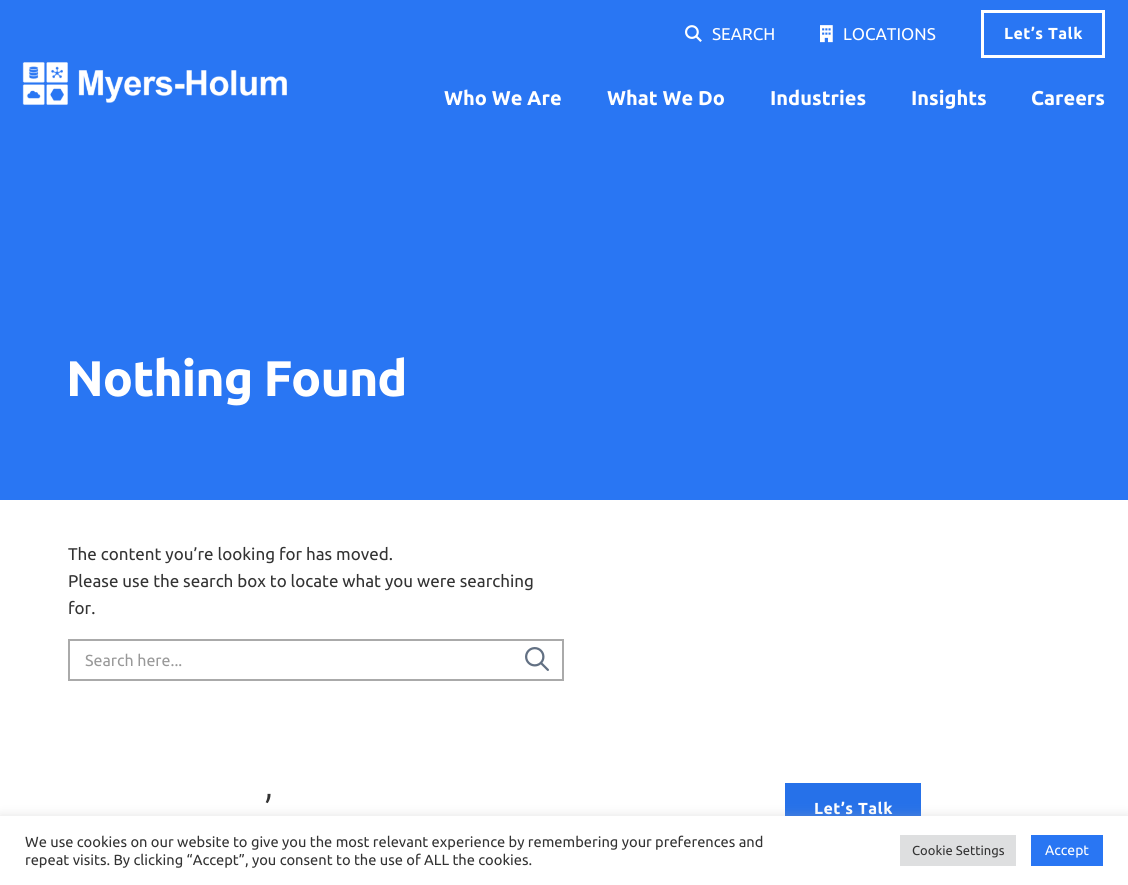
import math
import cairo

surface = cairo.ImageSurface(cairo.FORMAT_RGB24, 1128, 885)
ctx = cairo.Context(surface)
options = cairo.FontOptions()
options.set_hint_metrics(cairo.HINT_METRICS_OFF)
options.set_hint_style(cairo.HINT_STYLE_NONE)
ctx.set_font_options(options)
ctx.set_miter_limit(4)


def set_color(code):
    ctx.set_source_rgb(*(v / 255 for v in bytes.fromhex(code[-6:])))


def draw_text(x, y, s, family, size, color, bold=False, italic=False):
    ctx.select_font_face(family, cairo.FONT_SLANT_ITALIC if italic else cairo.FONT_SLANT_NORMAL, cairo.FONT_WEIGHT_BOLD if bold else cairo.FONT_WEIGHT_NORMAL)
    ctx.set_font_size(size)
    set_color(color)
    ctx.move_to(x, y)
    ctx.show_text(s)


def draw_spaced(x, y, s, letter, word):
    ctx.move_to(x, y)
    for ch in s:
        ctx.show_text(ch)
        ctx.rel_move_to(letter + word * (ch == ' '), 0)


def fill_rect(x, y, w, h, color):
    set_color(color)
    ctx.rectangle(x, y, w, h)
    ctx.fill()


def rounded_rect(x, y, w, h, r):
    ctx.new_sub_path()
    for i, (u, v) in enumerate([(x + w - r, y + h - r), (x + r, y + h - r), (x + r, y + r), (x + w - r, y + r)]):
        ctx.arc(u, v, r, i * math.pi / 2, (i + 1) * math.pi / 2)
    ctx.close_path()


def draw_shadow(x, y, w, h, r, blur, alpha):
    ctx.push_group_with_content(cairo.CONTENT_ALPHA)
    ctx.set_operator(cairo.OPERATOR_SOURCE)
    for i in range(15, -16, -2):
        e = blur * i / 6
        if min(w, h) + 2 * e > 0:
            ctx.set_source_rgba(0, 0, 0, alpha * math.erfc((i - 1) / 8.5) / 2)
            rounded_rect(x - e, y - e, w + 2 * e, h + 2 * e, max(0, min(r + e + blur * .6, min(w, h) / 2 + e)))
            ctx.fill()
    ctx.mask(ctx.pop_group())


def draw_image(path, x, y, w, h):
    ctx.save()
    ctx.set_source_surface(cairo.ImageSurface.create_from_png(path), x, y)
    ctx.rectangle(x, y, w, h)
    ctx.fill()
    ctx.restore()


set_color("#ffffff")
ctx.paint()
fill_rect(0, 0, 1128, 500, "#2976f3")
draw_image("assets/img1.png", 22, 62, 265, 43)
draw_image("assets/img2.png", 685, 25, 17, 17)
draw_text(712, 40, "SEARCH", "Ubuntu", 17, "#ffffff")
draw_image("assets/img3.png", 820, 25, 13, 18)
draw_text(843, 40, "LOCATIONS", "Ubuntu", 17, "#ffffff")
ctx.rectangle(982.5, 11.5, 121, 45)
ctx.set_line_width(3)
ctx.stroke()
ctx.select_font_face("Ubuntu", cairo.FONT_SLANT_NORMAL, cairo.FONT_WEIGHT_BOLD)
ctx.set_font_size(16)
draw_spaced(1004, 39, "Let’s Talk", 0.5, 0)
draw_text(444, 105, "Who We Are", "Ubuntu", 20, "#ffffff", bold=True)
draw_text(607, 105, "What We Do", "Ubuntu", 20, "#ffffff", bold=True)
draw_text(770, 105, "Industries", "Ubuntu", 20, "#ffffff", bold=True)
draw_text(911, 105, "Insights", "Ubuntu", 20, "#ffffff", bold=True)
draw_text(1031, 105, "Careers", "Ubuntu", 20, "#ffffff", bold=True)
ctx.set_font_size(50)
draw_spaced(66, 396, "Nothing Found", -1, 0)
draw_text(68, 560, "The content you’re looking for has moved.", "Ubuntu", 17, "#333333")
draw_text(68, 587, "Please use the search box to locate what you were searching", "Ubuntu", 17, "#333333")
draw_text(68, 614, "for.", "Ubuntu", 17, "#333333")
ctx.rectangle(69, 640, 494, 40)
set_color("#aaaaaa")
ctx.set_line_width(2)
ctx.stroke()
draw_text(85, 666, "Search here...", "Ubuntu", 16, "#999999")
draw_image("assets/img4.png", 525, 647, 24, 24)
ctx.select_font_face("Ubuntu Light")
ctx.set_font_size(42)
set_color("#333333")
draw_spaced(264, 825, "’", -1, 0)
fill_rect(785, 783, 136, 33, "#2671e9")
ctx.select_font_face("Ubuntu", cairo.FONT_SLANT_NORMAL, cairo.FONT_WEIGHT_BOLD)
ctx.set_font_size(16)
set_color("#ffffff")
draw_spaced(814, 814, "Let’s Talk", 0.5, 0)
set_color("#acabab")
draw_shadow(0, 815, 1128, 69, 0, 5, 0.3)
fill_rect(0, 816, 1128, 69, "#ffffff")
draw_text(25, 847, "We use cookies on our website to give you the most relevant experience by remembering your preferences and", "Ubuntu", 14.67, "#333333")
draw_text(25, 865, "repeat visits. By clicking “Accept”, you consent to the use of ALL the cookies.", "Ubuntu", 14.67, "#333333")
fill_rect(900, 835, 116, 31, "#dedfe0")
draw_text(912, 855, "Cookie Settings", "Ubuntu", 13, "#333333")
fill_rect(1031, 835, 72, 31, "#2976f3")
draw_text(1045, 855, "Accept", "Ubuntu", 14, "#ffffff")
surface.write_to_png("output.png")
